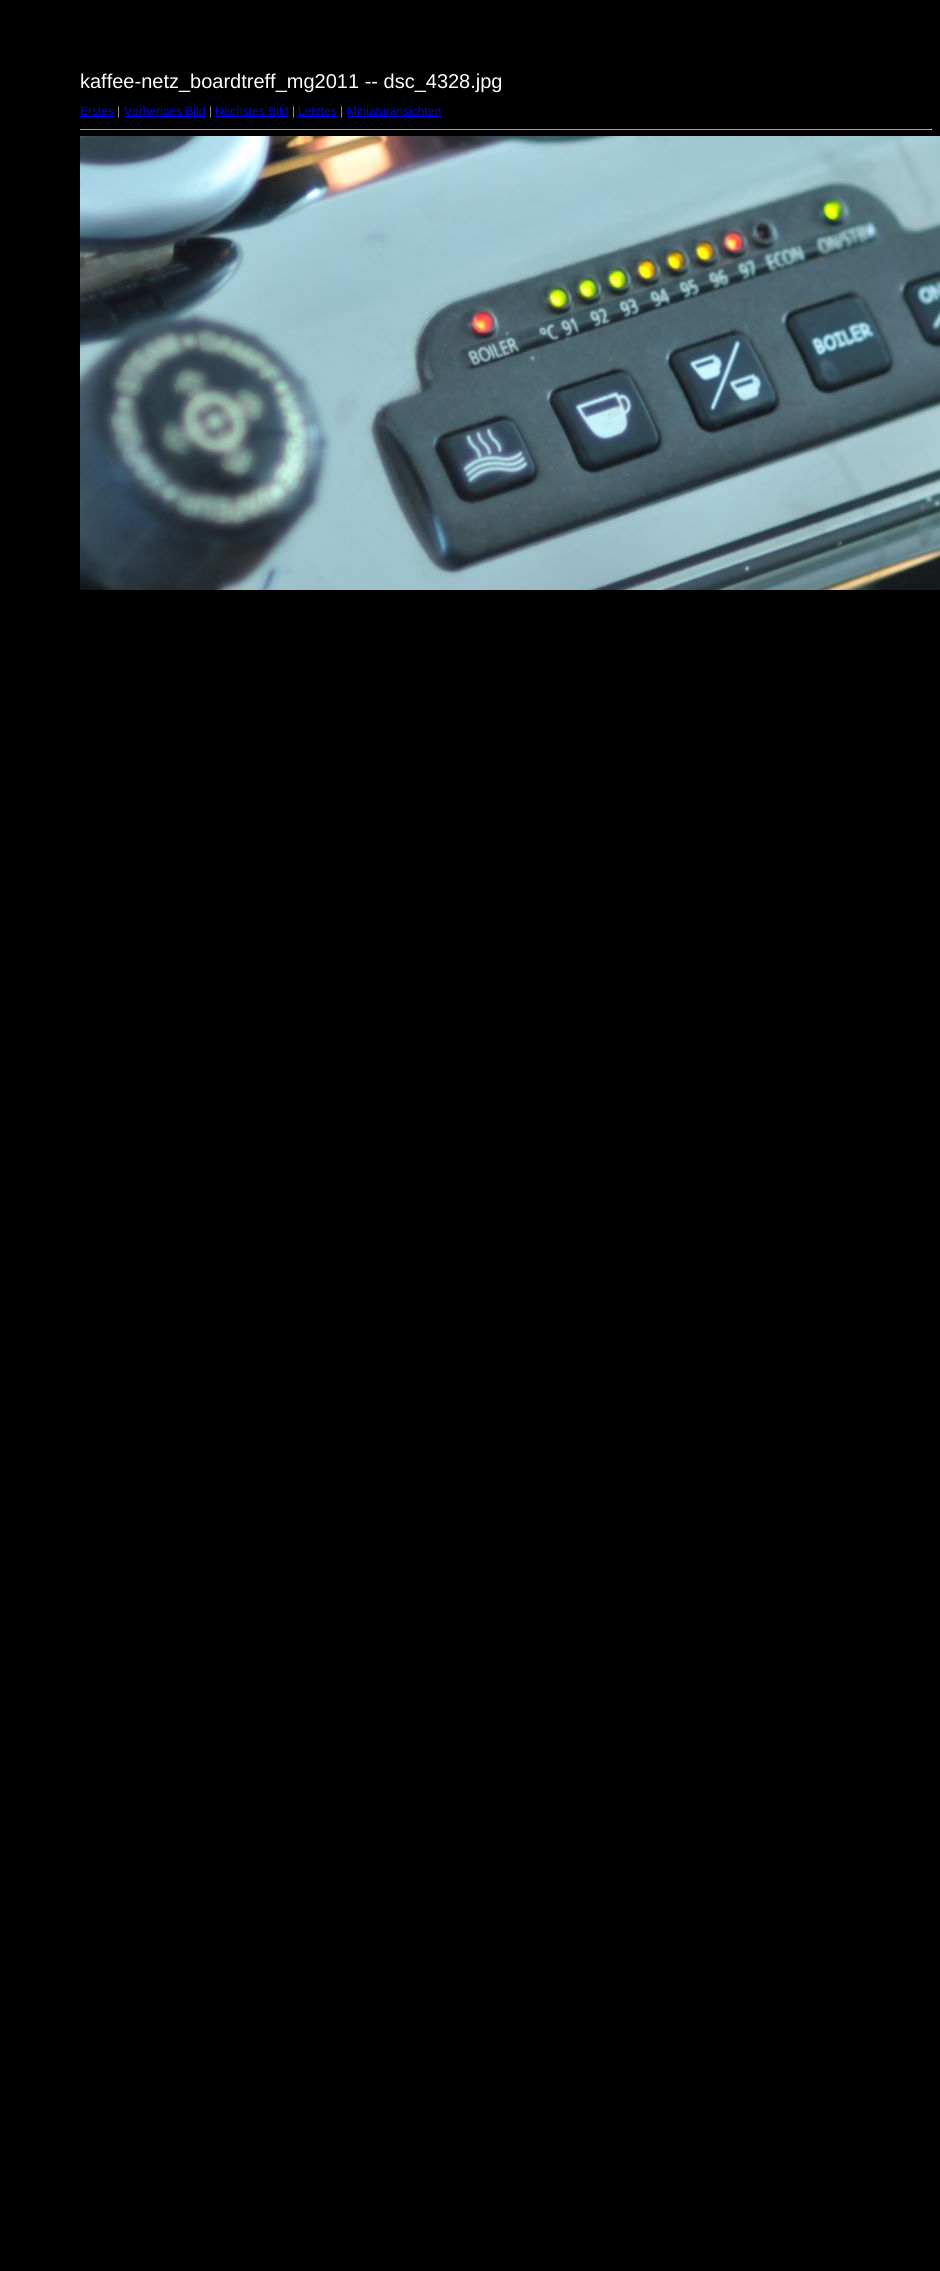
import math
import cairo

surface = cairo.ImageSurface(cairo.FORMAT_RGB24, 940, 2271)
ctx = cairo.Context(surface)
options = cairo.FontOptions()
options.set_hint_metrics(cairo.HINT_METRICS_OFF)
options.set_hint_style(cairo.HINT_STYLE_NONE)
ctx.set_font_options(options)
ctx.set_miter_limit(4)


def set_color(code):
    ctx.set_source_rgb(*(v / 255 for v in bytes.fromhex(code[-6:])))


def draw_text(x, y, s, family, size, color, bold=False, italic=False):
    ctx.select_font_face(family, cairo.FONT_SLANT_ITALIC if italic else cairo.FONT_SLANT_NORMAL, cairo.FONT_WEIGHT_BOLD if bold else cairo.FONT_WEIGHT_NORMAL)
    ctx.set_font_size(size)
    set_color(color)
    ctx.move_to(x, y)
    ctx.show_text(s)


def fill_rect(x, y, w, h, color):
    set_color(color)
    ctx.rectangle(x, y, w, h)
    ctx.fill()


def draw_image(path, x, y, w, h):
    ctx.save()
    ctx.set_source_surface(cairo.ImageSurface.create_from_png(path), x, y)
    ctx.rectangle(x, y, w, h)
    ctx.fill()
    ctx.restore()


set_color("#000000")
ctx.paint()
draw_text(80, 88, "kaffee-netz_boardtreff_mg2011 -- dsc_4328.jpg", "Liberation Sans", 20, "#ffffff")
draw_text(80, 115, "Erstes", "Liberation Sans", 12, "#0000ee")
fill_rect(80, 116, 34, 1, "#0000ee")
draw_text(117, 115, "|", "Liberation Sans", 12, "#999999")
fill_rect(124, 116, 81, 1, "#0000ee")
draw_text(124, 115, "Vorheriges Bild", "Liberation Sans", 12, "#0000ee")
draw_text(209, 115, "|", "Liberation Sans", 12, "#999999")
draw_text(215, 115, "Nächstes Bild", "Liberation Sans", 12, "#0000ee")
fill_rect(215, 116, 73, 1, "#0000ee")
draw_text(292, 115, "|", "Liberation Sans", 12, "#999999")
draw_text(298, 115, "Letztes", "Liberation Sans", 12, "#0000ee")
fill_rect(298, 116, 39, 1, "#0000ee")
draw_text(340, 115, "|", "Liberation Sans", 12, "#999999")
draw_text(347, 115, "Miniaturansichten", "Liberation Sans", 12, "#0000ee")
fill_rect(347, 116, 94, 1, "#0000ee")
fill_rect(80, 129, 852, 1, "#9f9f9f")
fill_rect(931, 129, 1, 1, "#eeeeee")
draw_image("assets/img1.png", 80, 136, 860, 454)
surface.write_to_png("output.png")
